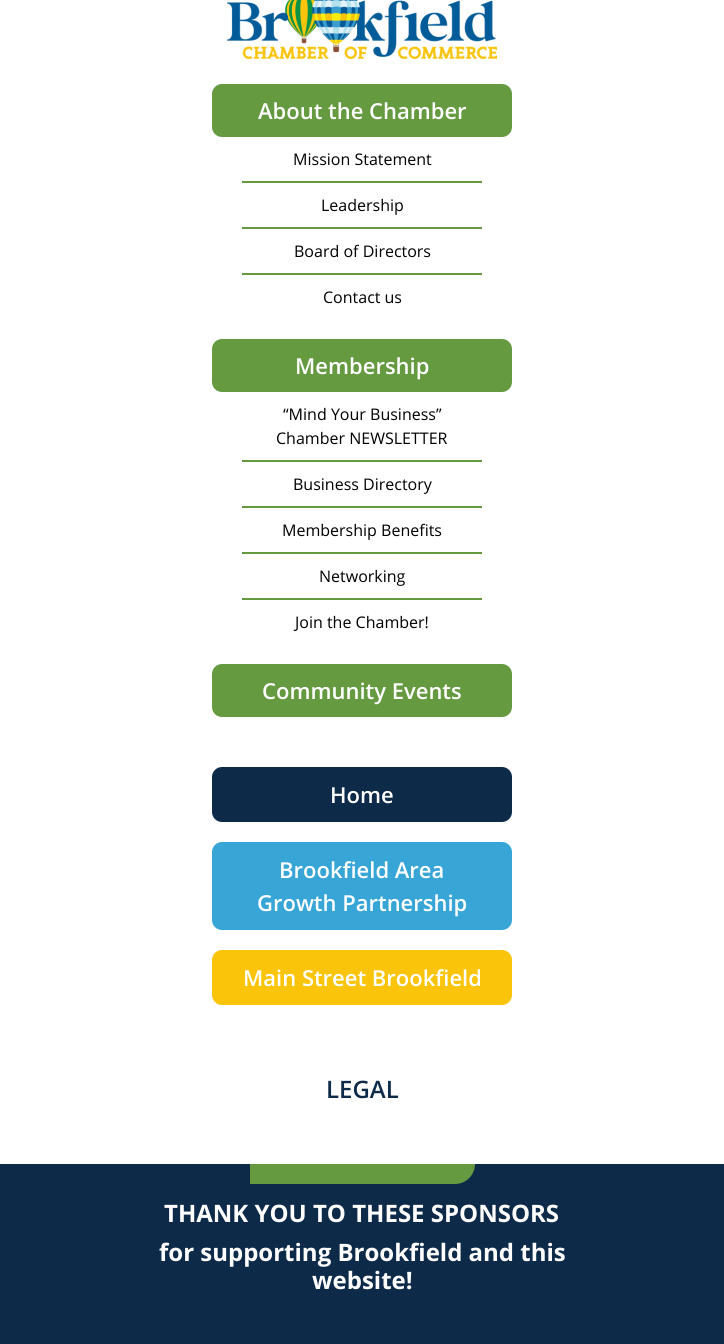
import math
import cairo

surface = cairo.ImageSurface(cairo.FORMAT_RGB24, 724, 1344)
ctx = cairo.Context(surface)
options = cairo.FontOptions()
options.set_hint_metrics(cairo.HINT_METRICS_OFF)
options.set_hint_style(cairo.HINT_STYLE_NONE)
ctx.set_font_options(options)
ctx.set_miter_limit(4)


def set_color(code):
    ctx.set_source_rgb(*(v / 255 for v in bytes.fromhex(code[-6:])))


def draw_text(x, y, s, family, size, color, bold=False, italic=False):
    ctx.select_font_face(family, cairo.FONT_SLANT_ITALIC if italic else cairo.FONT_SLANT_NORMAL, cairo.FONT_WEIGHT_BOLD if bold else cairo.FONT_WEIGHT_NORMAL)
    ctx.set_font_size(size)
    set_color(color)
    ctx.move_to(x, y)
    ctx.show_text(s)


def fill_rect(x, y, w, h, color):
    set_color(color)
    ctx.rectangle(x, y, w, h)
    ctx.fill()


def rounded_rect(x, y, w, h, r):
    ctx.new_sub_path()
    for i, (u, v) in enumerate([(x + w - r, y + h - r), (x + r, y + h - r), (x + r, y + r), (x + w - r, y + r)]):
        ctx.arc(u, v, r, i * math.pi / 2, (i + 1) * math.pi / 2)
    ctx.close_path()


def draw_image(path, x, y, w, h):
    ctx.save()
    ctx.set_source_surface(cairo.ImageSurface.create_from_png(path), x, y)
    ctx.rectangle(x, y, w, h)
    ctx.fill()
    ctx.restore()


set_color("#ffffff")
ctx.paint()
draw_image("assets/img1.png", 227, 0, 270, 59)
set_color("#659a41")
rounded_rect(212, 84, 300, 53, 10)
ctx.fill()
draw_text(258, 119, "About the Chamber", "Open Sans SemiBold", 22, "#ffffff")
fill_rect(242, 181, 240, 2, "#659a41")
draw_text(293, 165, "Mission Statement", "Open Sans", 16, "#000000")
fill_rect(242, 227, 240, 2, "#659a41")
draw_text(321, 211, "Leadership", "Open Sans", 16, "#000000")
fill_rect(242, 273, 240, 2, "#659a41")
draw_text(294, 257, "Board of Directors", "Open Sans", 16, "#000000")
draw_text(323, 303, "Contact us", "Open Sans", 16, "#000000")
set_color("#659a41")
rounded_rect(212, 339, 300, 53, 10)
ctx.fill()
draw_text(295, 374, "Membership", "Open Sans SemiBold", 22, "#ffffff")
fill_rect(242, 460, 240, 2, "#659a41")
draw_text(283, 420, "“Mind Your Business”", "Open Sans", 16, "#000000")
draw_text(276, 444, "Chamber NEWSLETTER", "Open Sans", 16, "#000000")
fill_rect(242, 506, 240, 2, "#659a41")
draw_text(293, 490, "Business Directory", "Open Sans", 16, "#000000")
fill_rect(242, 552, 240, 2, "#659a41")
draw_text(282, 536, "Membership Benefits", "Open Sans", 16, "#000000")
fill_rect(242, 598, 240, 2, "#659a41")
draw_text(319, 582, "Networking", "Open Sans", 16, "#000000")
draw_text(295, 628, "Join the Chamber!", "Open Sans", 16, "#000000")
set_color("#659a41")
rounded_rect(212, 664, 300, 53, 10)
ctx.fill()
draw_text(262, 699, "Community Events", "Open Sans SemiBold", 22, "#ffffff")
set_color("#0d2a49")
rounded_rect(212, 767, 300, 55, 10)
ctx.fill()
draw_text(330, 803, "Home", "Open Sans SemiBold", 22, "#ffffff")
set_color("#38a5d7")
rounded_rect(212, 842, 300, 88, 10)
ctx.fill()
draw_text(279, 878, "Brookfield Area", "Open Sans SemiBold", 22, "#ffffff")
draw_text(257, 911, "Growth Partnership", "Open Sans SemiBold", 22, "#ffffff")
set_color("#fac40b")
rounded_rect(212, 950, 300, 55, 10)
ctx.fill()
draw_text(243, 986, "Main Street Brookfield", "Open Sans SemiBold", 22, "#ffffff")
draw_text(326, 1098, "LEGAL", "Open Sans SemiBold", 24, "#0d2a49")
fill_rect(0, 1164, 724, 180, "#0d2a49")
set_color("#659a41")
ctx.new_path()
ctx.move_to(250, 1164)
ctx.line_to(475, 1164)
ctx.curve_to(475, 1175, 466, 1184, 455, 1184)
ctx.line_to(250, 1184)
ctx.close_path()
ctx.fill()
draw_text(164, 1222, "THANK YOU TO THESE SPONSORS", "Open Sans", 24, "#ffffff", bold=True)
draw_text(159, 1261, "for supporting Brookfield and this", "Open Sans", 24, "#ffffff", bold=True)
draw_text(312, 1289, "website!", "Open Sans", 24, "#ffffff", bold=True)
surface.write_to_png("output.png")
